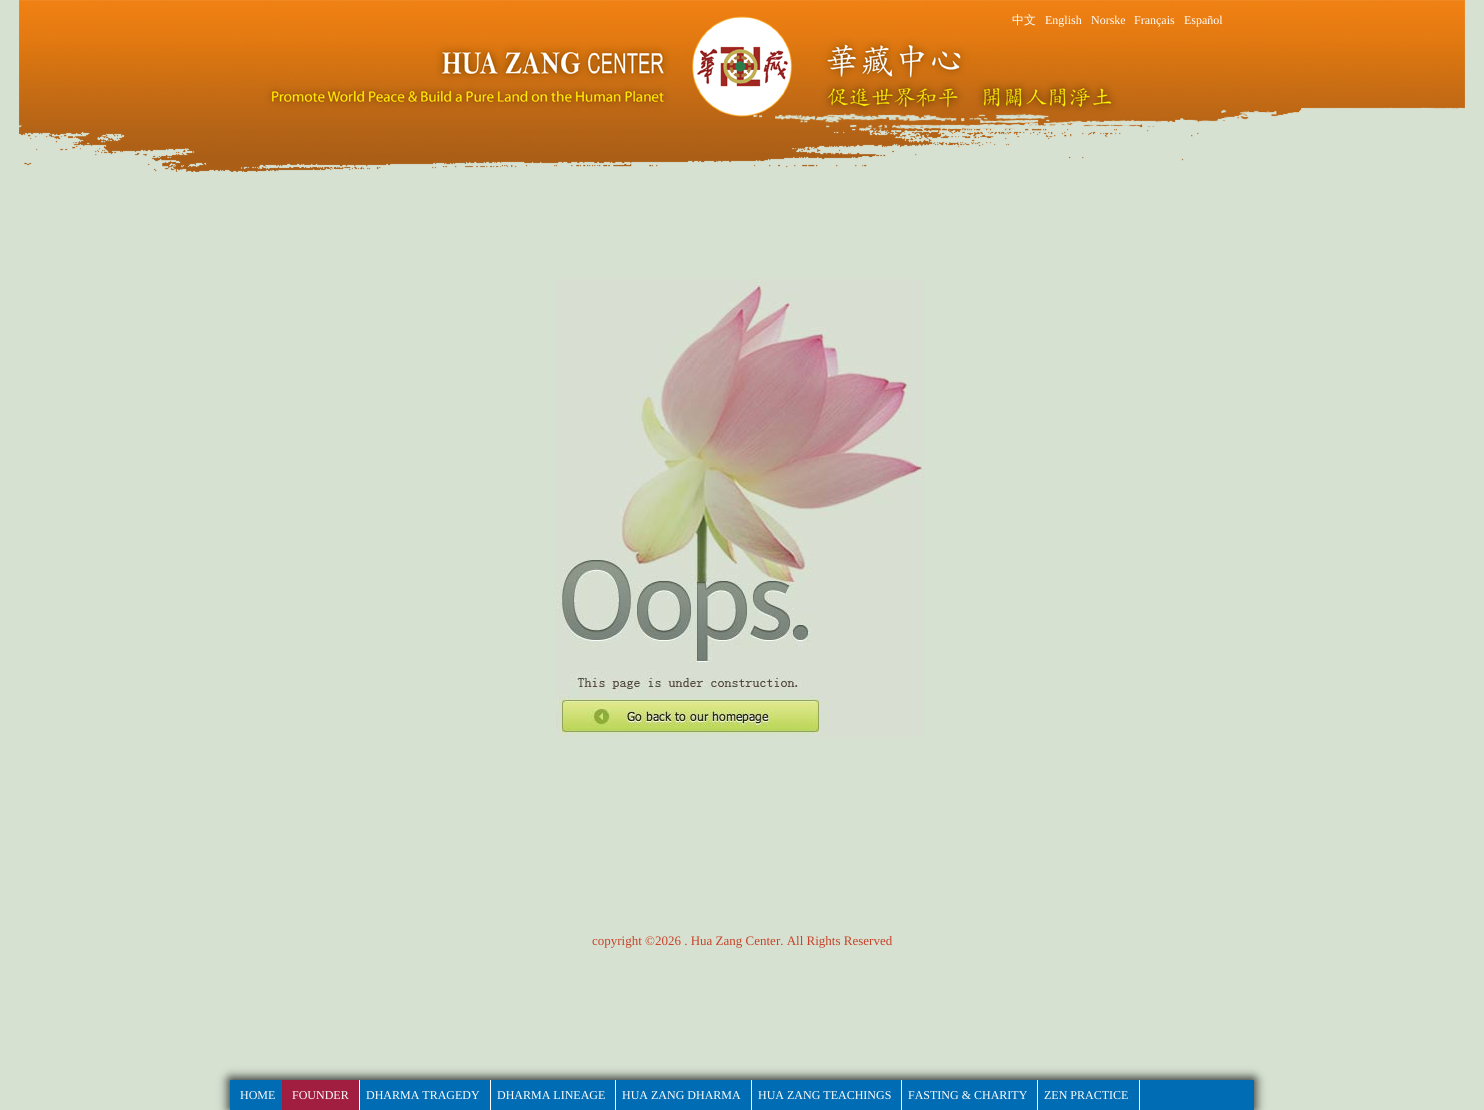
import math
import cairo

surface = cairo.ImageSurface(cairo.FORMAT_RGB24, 1484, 1110)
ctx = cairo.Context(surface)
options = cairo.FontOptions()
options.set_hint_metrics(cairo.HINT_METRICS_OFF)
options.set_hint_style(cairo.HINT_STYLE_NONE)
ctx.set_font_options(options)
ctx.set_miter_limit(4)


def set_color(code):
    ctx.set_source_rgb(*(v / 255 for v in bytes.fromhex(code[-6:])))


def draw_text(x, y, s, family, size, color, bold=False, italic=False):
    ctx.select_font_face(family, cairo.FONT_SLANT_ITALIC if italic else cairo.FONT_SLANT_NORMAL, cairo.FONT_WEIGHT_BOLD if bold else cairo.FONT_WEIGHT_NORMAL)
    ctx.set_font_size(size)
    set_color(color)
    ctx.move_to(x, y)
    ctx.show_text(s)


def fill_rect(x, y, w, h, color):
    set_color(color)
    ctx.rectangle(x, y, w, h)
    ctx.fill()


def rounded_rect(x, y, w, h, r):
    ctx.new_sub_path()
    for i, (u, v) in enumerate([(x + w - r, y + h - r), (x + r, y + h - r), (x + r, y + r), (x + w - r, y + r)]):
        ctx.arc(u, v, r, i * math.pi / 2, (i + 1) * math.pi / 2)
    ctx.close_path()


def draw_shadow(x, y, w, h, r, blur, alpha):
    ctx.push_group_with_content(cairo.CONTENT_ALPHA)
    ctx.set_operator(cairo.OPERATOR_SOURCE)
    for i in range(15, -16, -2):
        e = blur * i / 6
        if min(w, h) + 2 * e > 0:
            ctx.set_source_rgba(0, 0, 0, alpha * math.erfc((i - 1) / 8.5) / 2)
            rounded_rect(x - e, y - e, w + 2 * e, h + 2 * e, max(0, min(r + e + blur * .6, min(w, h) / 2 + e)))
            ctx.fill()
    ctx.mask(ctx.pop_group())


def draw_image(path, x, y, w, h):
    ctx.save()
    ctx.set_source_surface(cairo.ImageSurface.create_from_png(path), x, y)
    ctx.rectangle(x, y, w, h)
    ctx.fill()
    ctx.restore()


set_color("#d6e1d1")
ctx.paint()
draw_image("assets/img1.png", 19, 129, 1180, 43)
draw_image("assets/img2.png", 19, 0, 1446, 129)
draw_text(1012, 24, "中文", "WenQuanYi Zen Hei Medium", 12, "#ffffff")
draw_text(1045, 24, "English", "Liberation Serif", 12, "#ffffff")
draw_text(1091, 24, "Norske", "Liberation Serif", 12, "#ffffff")
draw_text(1134, 24, "Français", "Liberation Serif", 12, "#ffffff")
draw_text(1184, 24, "Español", "Liberation Serif", 12, "#ffffff")
draw_image("assets/img3.png", 555, 279, 369, 458)
draw_text(592, 945, "copyright ©2026 . Hua Zang Center. All Rights Reserved", "Liberation Serif", 13, "#c74228")
set_color("#000000")
draw_shadow(233, 1080, 1024, 30, 0, 5, 0.4)
draw_shadow(227, 1080, 1024, 30, 0, 5, 0.4)
draw_shadow(230, 1077, 1024, 30, 0, 5, 0.4)
fill_rect(230, 1080, 1024, 30, "#006cb3")
draw_text(240, 1099, "HOME", "Liberation Serif", 12, "#ffffff")
fill_rect(282, 1080, 77, 30, "#a21e40")
fill_rect(359, 1080, 1, 30, "#ffffff")
draw_text(292, 1099, "FOUNDER", "Liberation Serif", 12, "#ffffff")
fill_rect(490, 1080, 1, 30, "#ffffff")
draw_text(366, 1099, "DHARMA TRAGEDY", "Liberation Serif", 12, "#ffffff")
fill_rect(615, 1080, 1, 30, "#ffffff")
draw_text(497, 1099, "DHARMA LINEAGE", "Liberation Serif", 12, "#ffffff")
fill_rect(751, 1080, 1, 30, "#ffffff")
draw_text(622, 1099, "HUA ZANG DHARMA", "Liberation Serif", 12, "#ffffff")
fill_rect(901, 1080, 1, 30, "#ffffff")
draw_text(758, 1099, "HUA ZANG TEACHINGS", "Liberation Serif", 12, "#ffffff")
fill_rect(1037, 1080, 1, 30, "#ffffff")
draw_text(908, 1099, "FASTING & CHARITY", "Liberation Serif", 12, "#ffffff")
fill_rect(1139, 1080, 1, 30, "#ffffff")
draw_text(1044, 1099, "ZEN PRACTICE", "Liberation Serif", 12, "#ffffff")
surface.write_to_png("output.png")
